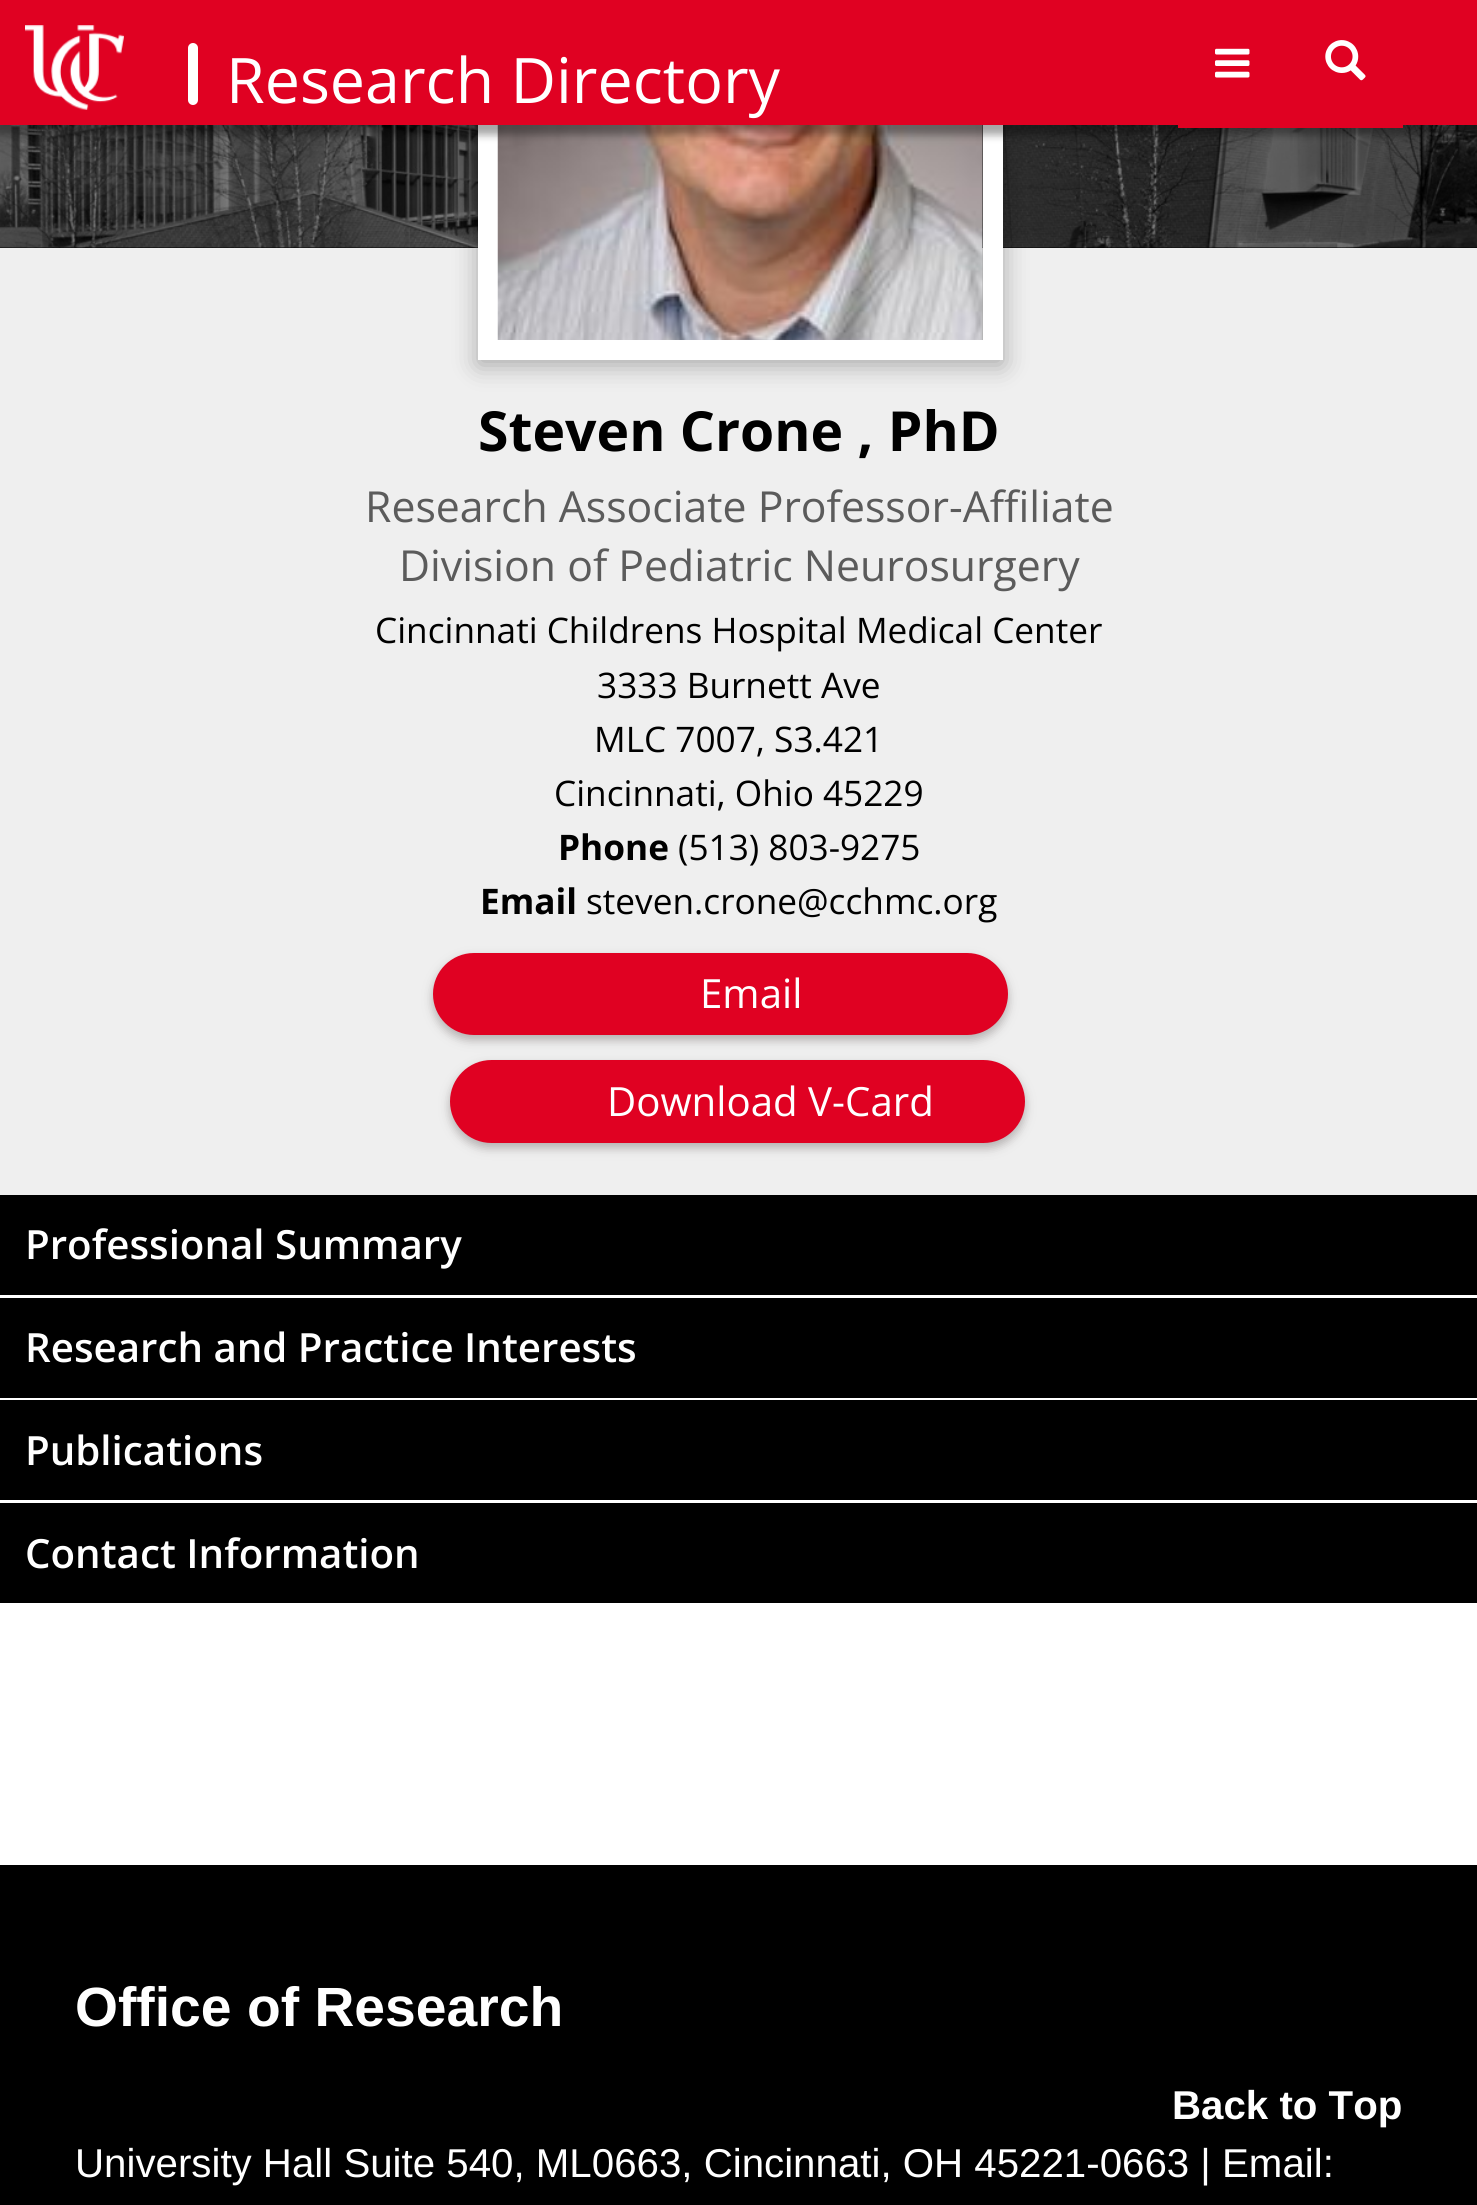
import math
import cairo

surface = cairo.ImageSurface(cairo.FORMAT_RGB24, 1477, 2205)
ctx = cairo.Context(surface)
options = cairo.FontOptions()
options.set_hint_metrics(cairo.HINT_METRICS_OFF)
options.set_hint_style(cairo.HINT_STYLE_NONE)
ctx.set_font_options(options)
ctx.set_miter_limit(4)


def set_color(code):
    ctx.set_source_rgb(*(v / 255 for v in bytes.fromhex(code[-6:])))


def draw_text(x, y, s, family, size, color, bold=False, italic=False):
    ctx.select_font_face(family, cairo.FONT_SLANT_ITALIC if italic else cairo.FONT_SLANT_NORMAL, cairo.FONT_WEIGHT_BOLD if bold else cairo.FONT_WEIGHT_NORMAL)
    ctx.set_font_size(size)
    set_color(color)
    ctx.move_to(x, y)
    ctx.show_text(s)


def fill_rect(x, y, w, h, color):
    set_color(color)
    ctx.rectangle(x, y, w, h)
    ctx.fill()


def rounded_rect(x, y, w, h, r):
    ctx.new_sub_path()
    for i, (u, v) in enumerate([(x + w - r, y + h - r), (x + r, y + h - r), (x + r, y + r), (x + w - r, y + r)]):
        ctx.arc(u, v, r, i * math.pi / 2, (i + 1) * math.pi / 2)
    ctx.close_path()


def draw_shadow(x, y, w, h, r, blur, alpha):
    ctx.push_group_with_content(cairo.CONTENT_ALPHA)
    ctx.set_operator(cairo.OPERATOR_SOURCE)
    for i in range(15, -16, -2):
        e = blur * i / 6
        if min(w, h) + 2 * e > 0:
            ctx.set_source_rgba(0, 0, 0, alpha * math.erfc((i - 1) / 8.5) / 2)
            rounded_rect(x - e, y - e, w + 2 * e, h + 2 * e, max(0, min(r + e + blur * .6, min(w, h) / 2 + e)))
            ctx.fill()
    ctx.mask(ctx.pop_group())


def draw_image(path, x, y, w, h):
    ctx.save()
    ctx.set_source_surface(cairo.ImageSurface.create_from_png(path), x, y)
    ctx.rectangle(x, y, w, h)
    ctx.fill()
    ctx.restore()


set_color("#ffffff")
ctx.paint()
fill_rect(0, 247, 1477, 1, "#000000")
draw_image("assets/img4.png", 0, 125, 1477, 123)
fill_rect(0, 248, 1477, 947, "#efefef")
set_color("#000000")
draw_shadow(478, -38, 525, 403, 0, 12.5, 0.3)
ctx.rectangle(488, -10, 505, 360)
set_color("#ffffff")
ctx.set_line_width(20)
ctx.stroke()
draw_image("assets/img5.png", 497, 125, 486, 215)
set_color("#000000")
draw_shadow(-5, 0, 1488, 135, 0, 4, 0.35)
fill_rect(0, 0, 1477, 125, "#e00122")
draw_image("assets/img1.png", 25, 25, 99, 85)
fill_rect(1178, 125, 225, 3, "#e00122")
draw_image("assets/img2.png", 1325, 40, 41, 41)
set_color("#ffffff")
rounded_rect(188, 43, 10, 62, 5)
ctx.fill()
draw_text(226, 103, "Research Directory", "Open Sans", 62.75, "#ffffff")
draw_image("assets/img3.png", 1215, 48, 35, 30)
draw_text(478, 451, "Steven Crone , PhD", "Open Sans", 55.25, "#000000", bold=True)
draw_text(365, 522, "Research Associate Professor-Affiliate", "Open Sans", 42.75, "#5b5b5b")
draw_text(399, 581, "Division of Pediatric Neurosurgery", "Open Sans", 42.75, "#5b5b5b")
draw_text(375, 643, "Cincinnati Childrens Hospital Medical Center", "Open Sans", 35.2, "#000000")
draw_text(597, 698, "3333 Burnett Ave", "Open Sans", 35.2, "#000000")
draw_text(594, 752, "MLC 7007, S3.421", "Open Sans", 35.2, "#000000")
draw_text(554, 806, "Cincinnati, Ohio 45229", "Open Sans", 35.2, "#000000")
draw_text(558, 860, "Phone", "Open Sans", 35.2, "#000000", bold=True)
draw_text(678, 860, "(513) 803-9275", "Open Sans", 35.2, "#000000")
draw_text(480, 914, "Email", "Open Sans", 35.2, "#000000", bold=True)
draw_text(586, 914, "steven.crone@cchmc.org", "Open Sans", 35.2, "#000000")
set_color("#776f6f")
draw_shadow(433, 958, 575, 82, 41, 5, 0.5)
set_color("#e00122")
rounded_rect(433, 953, 575, 82, 41)
ctx.fill()
draw_text(700, 1008, "Email", "Open Sans", 40.25, "#ffffff")
set_color("#776f6f")
draw_shadow(450, 1065, 575, 83, 41.5, 5, 0.5)
set_color("#e00122")
rounded_rect(450, 1060, 575, 83, 41.5)
ctx.fill()
draw_text(607, 1116, "Download V-Card", "Open Sans", 40.25, "#ffffff")
fill_rect(0, 1195, 1477, 100, "#000000")
draw_text(25, 1259, "Professional Summary", "Open Sans SemiBold", 40.25, "#ffffff")
fill_rect(0, 1298, 1477, 100, "#000000")
draw_text(25, 1362, "Research and Practice Interests", "Open Sans SemiBold", 40.25, "#ffffff")
fill_rect(0, 1400, 1477, 100, "#000000")
draw_text(25, 1465, "Publications", "Open Sans SemiBold", 40.25, "#ffffff")
fill_rect(0, 1503, 1477, 100, "#000000")
draw_text(25, 1568, "Contact Information", "Open Sans SemiBold", 40.25, "#ffffff")
fill_rect(0, 1865, 1477, 340, "#000000")
draw_text(75, 2026, "Office of Research", "Liberation Sans", 55.25, "#ffffff", bold=True)
draw_text(1172, 2119, "Back to Top", "Liberation Sans", 40.25, "#ffffff", bold=True)
draw_text(75, 2177, "University Hall Suite 540, ML0663, Cincinnati, OH 45221-0663 | Email:", "Liberation Sans", 40.25, "#ffffff")
surface.write_to_png("output.png")
